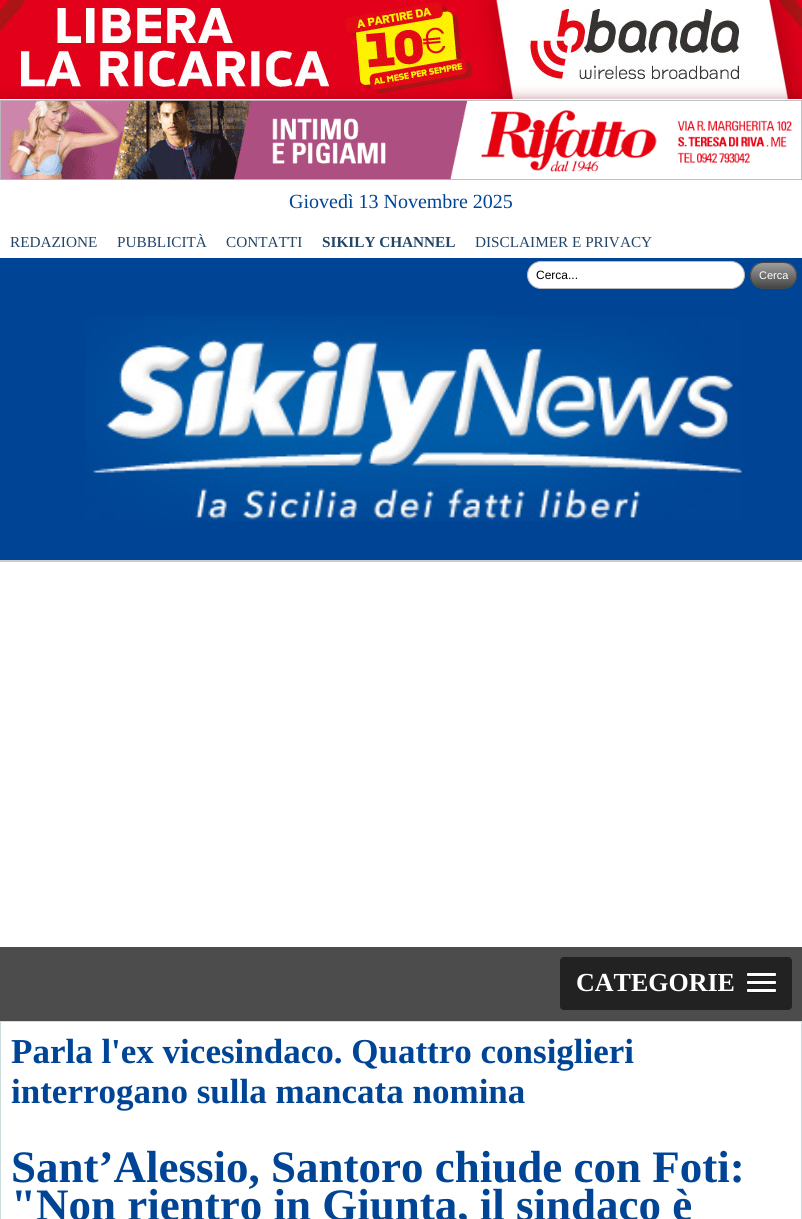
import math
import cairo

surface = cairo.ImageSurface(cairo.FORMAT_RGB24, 802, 1219)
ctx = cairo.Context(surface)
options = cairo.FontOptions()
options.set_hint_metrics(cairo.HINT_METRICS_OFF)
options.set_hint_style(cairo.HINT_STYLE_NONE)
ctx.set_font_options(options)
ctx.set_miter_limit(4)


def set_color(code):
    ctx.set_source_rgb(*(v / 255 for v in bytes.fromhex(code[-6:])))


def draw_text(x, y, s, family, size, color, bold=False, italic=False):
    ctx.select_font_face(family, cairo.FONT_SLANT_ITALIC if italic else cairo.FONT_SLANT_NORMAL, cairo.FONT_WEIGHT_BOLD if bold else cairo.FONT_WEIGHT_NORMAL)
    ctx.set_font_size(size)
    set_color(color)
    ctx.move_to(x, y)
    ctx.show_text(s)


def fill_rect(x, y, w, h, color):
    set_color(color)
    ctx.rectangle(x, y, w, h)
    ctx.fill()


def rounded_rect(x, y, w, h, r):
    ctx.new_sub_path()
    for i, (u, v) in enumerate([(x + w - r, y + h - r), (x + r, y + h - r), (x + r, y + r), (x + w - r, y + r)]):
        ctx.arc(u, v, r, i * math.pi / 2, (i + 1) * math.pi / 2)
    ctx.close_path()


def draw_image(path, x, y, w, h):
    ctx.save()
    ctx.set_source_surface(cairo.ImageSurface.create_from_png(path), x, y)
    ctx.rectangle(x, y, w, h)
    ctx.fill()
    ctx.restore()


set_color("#ffffff")
ctx.paint()
draw_image("assets/img1.png", 0, 0, 802, 100)
draw_image("assets/img2.png", 0, 100, 802, 80)
draw_text(289, 208, "Giovedì 13 Novembre 2025", "Liberation Serif", 20, "#004595")
fill_rect(0, 258, 802, 302, "#004595")
draw_text(10, 247, "REDAZIONE", "Liberation Serif", 15.25, "#234566")
draw_text(117, 247, "PUBBLICITÀ", "Liberation Serif", 15.25, "#234566")
draw_text(226, 247, "CONTATTI", "Liberation Serif", 15.25, "#234566")
draw_text(322, 247, "SIKILY CHANNEL", "Liberation Serif", 15.25, "#234566", bold=True)
draw_text(475, 247, "DISCLAIMER E PRIVACY", "Liberation Serif", 15.25, "#234566")
set_color("#ffffff")
rounded_rect(527.5, 261.5, 217, 27, 13.5)
ctx.fill_preserve()
set_color("#bcbbbb")
ctx.set_line_width(1)
ctx.stroke()
draw_text(536, 279, "Cerca...", "Liberation Sans", 12, "#000000")
ctx.save()
rounded_rect(750, 262, 47, 27, 13.5)
ctx.clip()
gradient = cairo.LinearGradient(751, 263, 751, 288)
gradient.add_color_stop_rgba(0, 0.62, 0.62, 0.62, 1)
gradient.add_color_stop_rgba(1, 0.271, 0.271, 0.271, 1)
ctx.set_source(gradient)
ctx.rectangle(750, 263, 47, 25)
ctx.fill()
ctx.restore()
rounded_rect(750.5, 262.5, 46, 26, 13)
set_color("#494949")
ctx.stroke()
draw_text(759, 279, "Cerca", "Liberation Sans", 11, "#ffffff")
draw_image("assets/img3.png", 86, 316, 656, 205)
fill_rect(0, 560, 802, 2, "#cccccc")
fill_rect(0, 947, 802, 74, "#4c4c4c")
set_color("#222222")
rounded_rect(560, 957, 232, 53, 4)
ctx.fill()
draw_text(576, 991, "CATEGORIE", "Liberation Serif", 26, "#ffffff", bold=True)
set_color("#1a1a1a")
ctx.new_path()
ctx.move_to(747, 975)
ctx.curve_to(747, 978, 749, 977, 752.5, 977)
ctx.line_to(770.5, 977)
ctx.curve_to(774, 977, 776, 978, 776, 975)
ctx.line_to(775.5, 976)
ctx.line_to(747.5, 976)
ctx.close_path()
ctx.fill()
set_color("#ffffff")
rounded_rect(747, 973, 29, 3, 1)
ctx.fill()
set_color("#1a1a1a")
ctx.new_path()
ctx.move_to(747, 983)
ctx.curve_to(747, 986, 749, 985, 752.5, 985)
ctx.line_to(770.5, 985)
ctx.curve_to(774, 985, 776, 986, 776, 983)
ctx.line_to(775.5, 984)
ctx.line_to(747.5, 984)
ctx.close_path()
ctx.fill()
set_color("#ffffff")
rounded_rect(747, 981, 29, 3, 1)
ctx.fill()
set_color("#1a1a1a")
ctx.new_path()
ctx.move_to(747, 991)
ctx.curve_to(747, 994, 749, 993, 752.5, 993)
ctx.line_to(770.5, 993)
ctx.curve_to(774, 993, 776, 994, 776, 991)
ctx.line_to(775.5, 992)
ctx.line_to(747.5, 992)
ctx.close_path()
ctx.fill()
set_color("#ffffff")
rounded_rect(747, 989, 29, 3, 1)
ctx.fill()
ctx.rectangle(0.5, 1021.5, 801, 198)
set_color("#cbdddd")
ctx.stroke()
draw_text(11, 1063, "Parla l'ex vicesindaco. Quattro consiglieri", "Liberation Serif", 35, "#004595", bold=True)
draw_text(11, 1103, "interrogano sulla mancata nomina", "Liberation Serif", 35, "#004595", bold=True)
draw_text(11, 1182, "Sant’Alessio, Santoro chiude con Foti:", "Liberation Serif", 45, "#004595", bold=True)
draw_text(11, 1220, "\"Non rientro in Giunta, il sindaco è", "Liberation Serif", 45, "#004595", bold=True)
surface.write_to_png("output.png")
